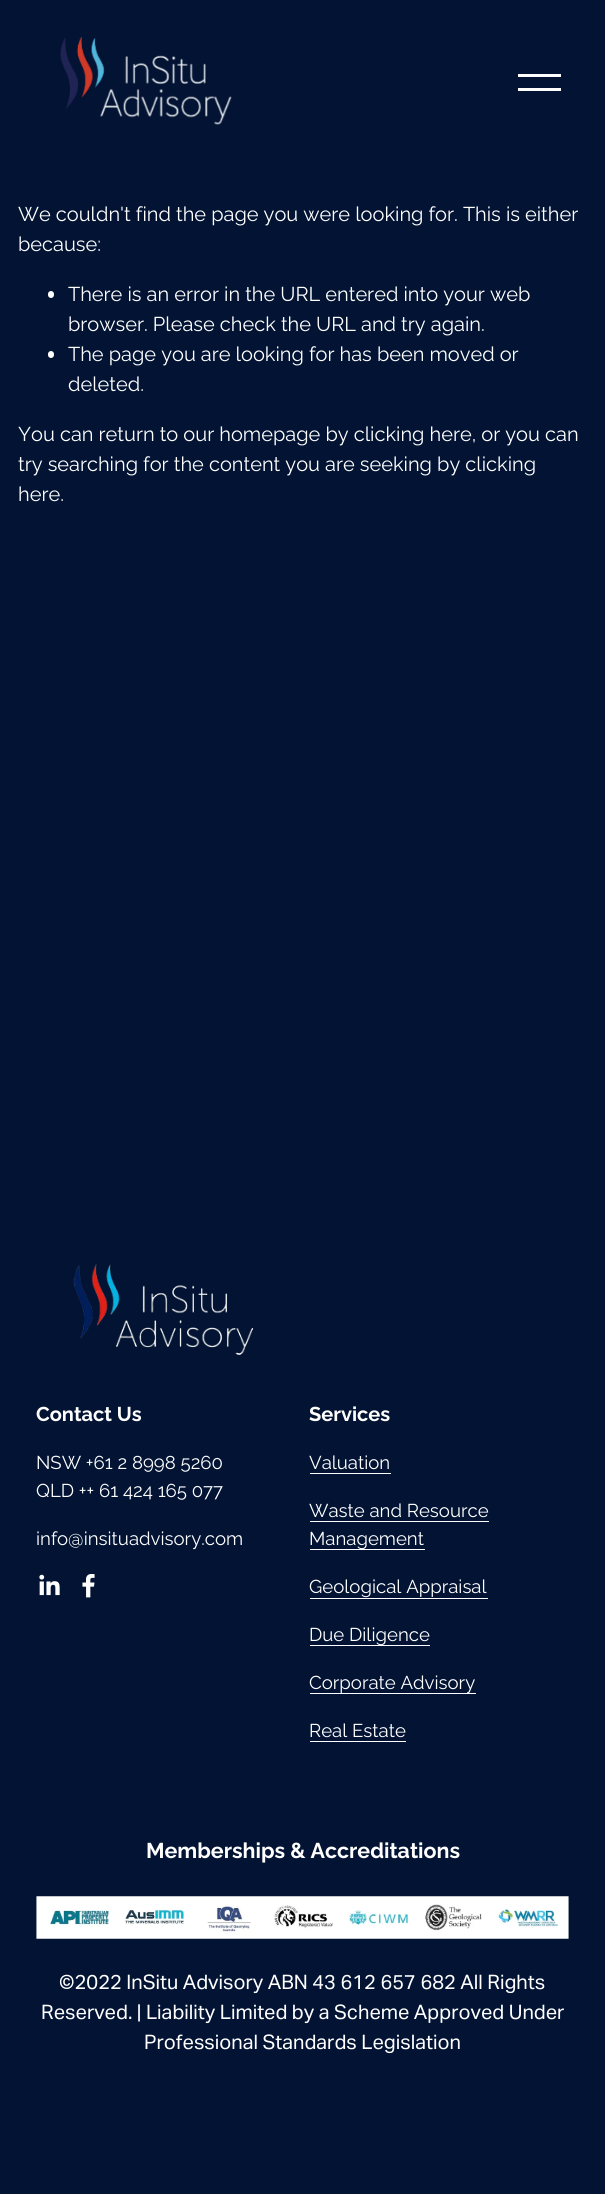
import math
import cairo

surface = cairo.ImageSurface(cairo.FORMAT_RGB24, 605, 2194)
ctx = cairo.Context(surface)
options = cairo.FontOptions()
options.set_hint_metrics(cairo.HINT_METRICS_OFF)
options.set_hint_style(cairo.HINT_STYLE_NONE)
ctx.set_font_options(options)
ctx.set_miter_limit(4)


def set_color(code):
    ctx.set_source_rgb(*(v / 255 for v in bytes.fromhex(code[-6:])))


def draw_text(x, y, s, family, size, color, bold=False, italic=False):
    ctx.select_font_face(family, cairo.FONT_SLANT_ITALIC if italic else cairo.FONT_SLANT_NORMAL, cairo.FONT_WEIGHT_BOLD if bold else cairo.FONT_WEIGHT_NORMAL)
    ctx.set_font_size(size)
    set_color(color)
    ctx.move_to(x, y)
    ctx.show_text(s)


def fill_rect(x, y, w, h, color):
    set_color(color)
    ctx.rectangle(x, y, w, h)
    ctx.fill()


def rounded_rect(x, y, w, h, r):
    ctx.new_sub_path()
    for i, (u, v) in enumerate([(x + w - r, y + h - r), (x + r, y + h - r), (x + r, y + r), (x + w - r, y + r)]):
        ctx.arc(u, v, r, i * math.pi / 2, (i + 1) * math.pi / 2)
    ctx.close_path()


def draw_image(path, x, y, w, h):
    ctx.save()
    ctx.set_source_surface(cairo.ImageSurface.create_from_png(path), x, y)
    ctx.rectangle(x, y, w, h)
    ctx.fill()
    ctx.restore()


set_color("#021333")
ctx.paint()
draw_image("assets/img1.png", 60, 36, 172, 89)
fill_rect(518, 74, 43, 3, "#ffffff")
fill_rect(518, 88, 43, 3, "#ffffff")
draw_text(18, 221, "We couldn't find the page you were looking for. This is either", "Raleway", 20, "#ffffff")
draw_text(18, 251, "because:", "Raleway", 20, "#ffffff")
rounded_rect(48, 291, 6, 7, 3)
ctx.fill()
draw_text(68, 301, "There is an error in the URL entered into your web", "Raleway", 20, "#ffffff")
draw_text(68, 331, "browser. Please check the URL and try again.", "Raleway", 20, "#ffffff")
rounded_rect(48, 351, 6, 7, 3)
ctx.fill()
draw_text(68, 361, "The page you are looking for has been moved or", "Raleway", 20, "#ffffff")
draw_text(68, 391, "deleted.", "Raleway", 20, "#ffffff")
draw_text(18, 441, "You can return to our homepage by clicking here, or you can", "Raleway", 20, "#ffffff")
draw_text(18, 471, "try searching for the content you are seeking by clicking", "Raleway", 20, "#ffffff")
draw_text(18, 501, "here.", "Raleway", 20, "#ffffff")
draw_image("assets/img2.png", 73, 1264, 181, 91)
draw_text(36, 1421, "Contact Us", "Raleway", 20, "#ffffff", bold=True)
draw_text(36, 1469, "NSW +61 2 8998 5260", "Raleway", 18.6, "#ffffff")
draw_text(36, 1497, "QLD ++ 61 424 165 077", "Raleway", 18.6, "#ffffff")
draw_text(36, 1545, "info@insituadvisory.com", "Raleway", 18.6, "#ffffff")
draw_text(309, 1421, "Services", "Raleway", 20, "#ffffff", bold=True)
draw_text(309, 1469, "Valuation", "Raleway", 18.6, "#ffffff")
fill_rect(310, 1473, 81, 1, "#ffffff")
draw_text(309, 1517, "Waste and Resource", "Raleway", 18.6, "#ffffff")
fill_rect(310, 1521, 179, 1, "#ffffff")
fill_rect(310, 1549, 115, 1, "#ffffff")
draw_text(309, 1545, "Management", "Raleway", 18.6, "#ffffff")
draw_text(309, 1593, "Geological Appraisal", "Raleway", 18.6, "#ffffff")
fill_rect(310, 1598, 178, 1, "#ffffff")
fill_rect(310, 1645, 120, 1, "#ffffff")
draw_text(309, 1641, "Due Diligence", "Raleway", 18.6, "#ffffff")
fill_rect(310, 1693, 166, 1, "#ffffff")
draw_text(309, 1689, "Corporate Advisory", "Raleway", 18.6, "#ffffff")
draw_text(309, 1737, "Real Estate", "Raleway", 18.6, "#ffffff")
fill_rect(310, 1741, 96, 1, "#ffffff")
draw_image("assets/img3.png", 39, 1574, 21, 22)
draw_image("assets/img4.png", 82, 1574, 13, 24)
draw_text(146, 1858, "Memberships & Accreditations", "Raleway", 21.4, "#ffffff", bold=True)
draw_image("assets/img5.png", 36, 1896, 533, 43)
draw_text(59, 1989, "©2022 InSitu Advisory ABN 43 612 657 682 All Rights", "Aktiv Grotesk", 20, "#ffffff")
draw_text(41, 2019, "Reserved. | Liability Limited by a Scheme Approved Under", "Aktiv Grotesk", 20, "#ffffff")
draw_text(144, 2049, "Professional Standards Legislation", "Aktiv Grotesk", 20, "#ffffff")
surface.write_to_png("output.png")
